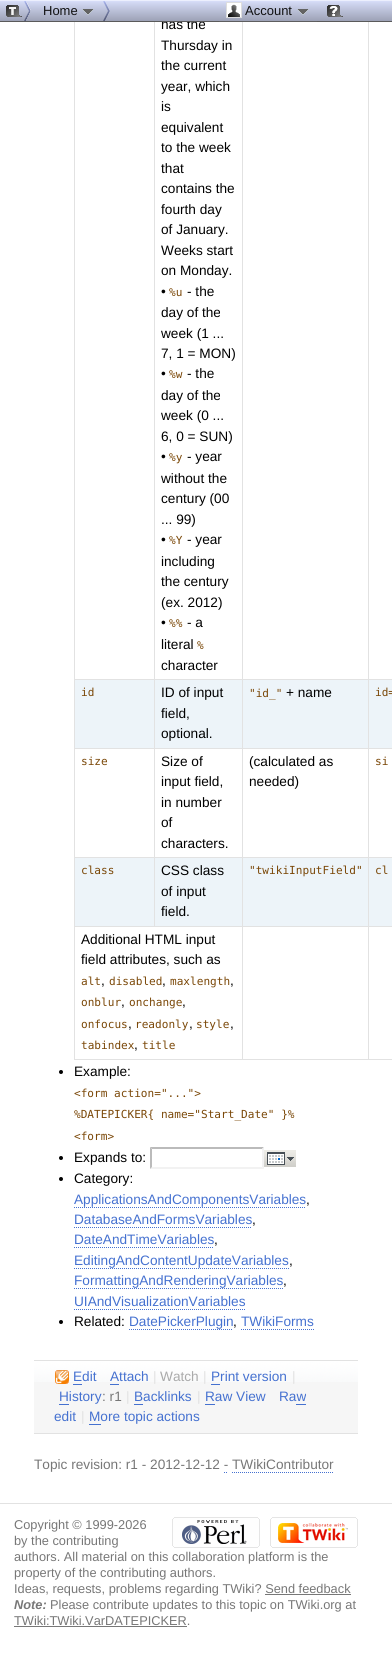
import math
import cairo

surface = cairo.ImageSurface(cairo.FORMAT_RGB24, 392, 1657)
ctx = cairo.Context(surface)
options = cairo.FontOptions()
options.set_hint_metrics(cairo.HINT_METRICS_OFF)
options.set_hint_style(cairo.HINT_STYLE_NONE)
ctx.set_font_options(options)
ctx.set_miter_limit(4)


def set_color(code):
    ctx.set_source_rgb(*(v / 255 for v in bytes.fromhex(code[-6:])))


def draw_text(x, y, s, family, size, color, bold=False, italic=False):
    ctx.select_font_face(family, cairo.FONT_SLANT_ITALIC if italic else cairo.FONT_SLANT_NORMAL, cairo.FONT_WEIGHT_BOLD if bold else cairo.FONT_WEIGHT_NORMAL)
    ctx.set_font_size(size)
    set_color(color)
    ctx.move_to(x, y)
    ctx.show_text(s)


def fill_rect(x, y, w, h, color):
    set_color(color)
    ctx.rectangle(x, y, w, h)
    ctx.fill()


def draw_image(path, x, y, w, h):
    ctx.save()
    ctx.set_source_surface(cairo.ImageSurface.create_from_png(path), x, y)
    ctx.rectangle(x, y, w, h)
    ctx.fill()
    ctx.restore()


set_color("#ffffff")
ctx.paint()
draw_image("assets/img1.png", 0, 0, 6, 22)
draw_text(161, 29, "has the", "Liberation Sans", 13.65, "#000000")
draw_image("assets/img2.png", 6, 0, 386, 22)
draw_image("assets/img3.png", 6, 1, 25, 20)
draw_text(43, 15, "Home", "Liberation Sans", 13, "#111111")
draw_image("assets/img4.png", 82, 9, 12, 6)
draw_image("assets/img5.png", 103, 1, 7, 20)
fill_rect(219, 21, 98, 1, "#5e5e5f")
draw_image("assets/img6.png", 226, 2, 16, 16)
draw_text(245, 15, "Account", "Liberation Sans", 13, "#111111")
draw_image("assets/img7.png", 297, 9, 12, 6)
draw_image("assets/img8.png", 327, 5, 16, 12)
fill_rect(74, 1059, 318, 1, "#e2e2e2")
fill_rect(74, 22, 1, 1038, "#e2e2e2")
fill_rect(368, 679, 24, 1, "#e2e2e2")
fill_rect(368, 748, 24, 1, "#e2e2e2")
fill_rect(368, 857, 24, 1, "#e2e2e2")
fill_rect(368, 926, 24, 1, "#e2e2e2")
fill_rect(368, 926, 1, 134, "#e2e2e2")
fill_rect(242, 926, 127, 1, "#e2e2e2")
fill_rect(368, 857, 1, 70, "#e2e2e2")
fill_rect(242, 857, 127, 1, "#e2e2e2")
fill_rect(368, 748, 1, 110, "#e2e2e2")
fill_rect(242, 748, 127, 1, "#e2e2e2")
fill_rect(368, 679, 1, 70, "#e2e2e2")
fill_rect(242, 679, 127, 1, "#e2e2e2")
fill_rect(242, 926, 1, 134, "#e2e2e2")
fill_rect(74, 926, 169, 1, "#e2e2e2")
fill_rect(242, 857, 1, 70, "#e2e2e2")
fill_rect(154, 857, 89, 1, "#e2e2e2")
fill_rect(242, 748, 1, 110, "#e2e2e2")
fill_rect(154, 748, 89, 1, "#e2e2e2")
fill_rect(242, 679, 1, 70, "#e2e2e2")
fill_rect(154, 679, 89, 1, "#e2e2e2")
fill_rect(154, 857, 1, 70, "#e2e2e2")
fill_rect(74, 857, 81, 1, "#e2e2e2")
fill_rect(154, 748, 1, 110, "#e2e2e2")
fill_rect(74, 748, 81, 1, "#e2e2e2")
fill_rect(154, 679, 1, 70, "#e2e2e2")
fill_rect(74, 679, 81, 1, "#e2e2e2")
fill_rect(154, 22, 1, 658, "#e2e2e2")
draw_text(161, 50, "Thursday in", "Liberation Sans", 13.65, "#000000")
draw_text(161, 70, "the current", "Liberation Sans", 13.65, "#000000")
draw_text(161, 91, "year, which", "Liberation Sans", 13.65, "#000000")
draw_text(161, 111, "is", "Liberation Sans", 13.65, "#000000")
draw_text(161, 132, "equivalent", "Liberation Sans", 13.65, "#000000")
draw_text(161, 152, "to the week", "Liberation Sans", 13.65, "#000000")
draw_text(161, 173, "that", "Liberation Sans", 13.65, "#000000")
draw_text(161, 193, "contains the", "Liberation Sans", 13.65, "#000000")
draw_text(161, 214, "fourth day", "Liberation Sans", 13.65, "#000000")
draw_text(161, 234, "of January.", "Liberation Sans", 13.65, "#000000")
draw_text(161, 255, "Weeks start", "Liberation Sans", 13.65, "#000000")
draw_text(161, 275, "on Monday.", "Liberation Sans", 13.65, "#000000")
draw_text(161, 296, "•", "Liberation Sans", 13.65, "#000000")
draw_text(169, 296, "%u", "DejaVu Sans Mono", 11.1, "#7a4707")
draw_text(187, 296, "- the", "Liberation Sans", 13.65, "#000000")
draw_text(161, 317, "day of the", "Liberation Sans", 13.65, "#000000")
draw_text(161, 338, "week (1 ...", "Liberation Sans", 13.65, "#000000")
draw_text(161, 358, "7, 1 = MON)", "Liberation Sans", 13.65, "#000000")
draw_text(161, 378, "•", "Liberation Sans", 13.65, "#000000")
draw_text(169, 378, "%w", "DejaVu Sans Mono", 11.1, "#7a4707")
draw_text(187, 378, "- the", "Liberation Sans", 13.65, "#000000")
draw_text(161, 400, "day of the", "Liberation Sans", 13.65, "#000000")
draw_text(161, 420, "week (0 ...", "Liberation Sans", 13.65, "#000000")
draw_text(161, 441, "6, 0 = SUN)", "Liberation Sans", 13.65, "#000000")
draw_text(161, 461, "•", "Liberation Sans", 13.65, "#000000")
draw_text(169, 461, "%y", "DejaVu Sans Mono", 11.1, "#7a4707")
draw_text(187, 461, "- year", "Liberation Sans", 13.65, "#000000")
draw_text(161, 483, "without the", "Liberation Sans", 13.65, "#000000")
draw_text(161, 503, "century (00", "Liberation Sans", 13.65, "#000000")
draw_text(161, 524, "... 99)", "Liberation Sans", 13.65, "#000000")
draw_text(161, 544, "•", "Liberation Sans", 13.65, "#000000")
draw_text(169, 544, "%Y", "DejaVu Sans Mono", 11.1, "#7a4707")
draw_text(187, 544, "- year", "Liberation Sans", 13.65, "#000000")
draw_text(161, 566, "including", "Liberation Sans", 13.65, "#000000")
draw_text(161, 586, "the century", "Liberation Sans", 13.65, "#000000")
draw_text(161, 607, "(ex. 2012)", "Liberation Sans", 13.65, "#000000")
draw_text(161, 627, "•", "Liberation Sans", 13.65, "#000000")
draw_text(169, 627, "%%", "DejaVu Sans Mono", 11.1, "#7a4707")
draw_text(187, 627, "- a", "Liberation Sans", 13.65, "#000000")
draw_text(161, 649, "literal", "Liberation Sans", 13.65, "#000000")
draw_text(197, 649, "%", "DejaVu Sans Mono", 11.1, "#7a4707")
draw_text(161, 670, "character", "Liberation Sans", 13.65, "#000000")
fill_rect(242, 22, 1, 658, "#e2e2e2")
fill_rect(368, 22, 1, 658, "#e2e2e2")
fill_rect(75, 680, 79, 68, "#edf4f9")
draw_text(81, 696, "id", "DejaVu Sans Mono", 11.1, "#7a4707")
fill_rect(155, 680, 87, 68, "#edf4f9")
draw_text(161, 697, "ID of input", "Liberation Sans", 13.65, "#000000")
draw_text(161, 718, "field,", "Liberation Sans", 13.65, "#000000")
draw_text(161, 738, "optional.", "Liberation Sans", 13.65, "#000000")
fill_rect(243, 680, 125, 68, "#edf4f9")
draw_text(249, 697, "\"id_\"", "DejaVu Sans Mono", 11.1, "#7a4707")
draw_text(286, 697, "+ name", "Liberation Sans", 13.65, "#000000")
fill_rect(369, 680, 23, 68, "#edf4f9")
draw_text(375, 696, "id=", "DejaVu Sans Mono", 11.1, "#7a4707")
draw_text(81, 765, "size", "DejaVu Sans Mono", 11.1, "#7a4707")
draw_text(161, 766, "Size of", "Liberation Sans", 13.65, "#000000")
draw_text(161, 786, "input field,", "Liberation Sans", 13.65, "#000000")
draw_text(161, 807, "in number", "Liberation Sans", 13.65, "#000000")
draw_text(161, 827, "of", "Liberation Sans", 13.65, "#000000")
draw_text(161, 848, "characters.", "Liberation Sans", 13.65, "#000000")
draw_text(249, 766, "(calculated as", "Liberation Sans", 13.65, "#000000")
draw_text(249, 786, "needed)", "Liberation Sans", 13.65, "#000000")
draw_text(375, 765, "si", "DejaVu Sans Mono", 11.1, "#7a4707")
fill_rect(75, 858, 79, 68, "#edf4f9")
draw_text(81, 874, "class", "DejaVu Sans Mono", 11.1, "#7a4707")
fill_rect(155, 858, 87, 68, "#edf4f9")
draw_text(161, 875, "CSS class", "Liberation Sans", 13.65, "#000000")
draw_text(161, 896, "of input", "Liberation Sans", 13.65, "#000000")
draw_text(161, 916, "field.", "Liberation Sans", 13.65, "#000000")
fill_rect(243, 858, 125, 68, "#edf4f9")
draw_text(249, 874, "\"twikiInputField\"", "DejaVu Sans Mono", 11.1, "#7a4707")
fill_rect(369, 858, 23, 68, "#edf4f9")
draw_text(375, 874, "cl", "DejaVu Sans Mono", 11.1, "#7a4707")
draw_text(81, 944, "Additional HTML input", "Liberation Sans", 13.65, "#000000")
draw_text(81, 964, "field attributes, such as", "Liberation Sans", 13.65, "#000000")
draw_text(81, 985, "alt", "DejaVu Sans Mono", 11.1, "#7a4707")
draw_text(101, 985, ",", "Liberation Sans", 13.65, "#000000")
draw_text(109, 985, "disabled", "DejaVu Sans Mono", 11.1, "#7a4707")
draw_text(162, 985, ",", "Liberation Sans", 13.65, "#000000")
draw_text(170, 985, "maxlength", "DejaVu Sans Mono", 11.1, "#7a4707")
draw_text(230, 985, ",", "Liberation Sans", 13.65, "#000000")
draw_text(81, 1006, "onblur", "DejaVu Sans Mono", 11.1, "#7a4707")
draw_text(121, 1006, ",", "Liberation Sans", 13.65, "#000000")
draw_text(129, 1006, "onchange", "DejaVu Sans Mono", 11.1, "#7a4707")
draw_text(182, 1006, ",", "Liberation Sans", 13.65, "#000000")
draw_text(81, 1028, "onfocus", "DejaVu Sans Mono", 11.1, "#7a4707")
draw_text(128, 1028, ",", "Liberation Sans", 13.65, "#000000")
draw_text(135, 1028, "readonly", "DejaVu Sans Mono", 11.1, "#7a4707")
draw_text(189, 1028, ",", "Liberation Sans", 13.65, "#000000")
draw_text(196, 1028, "style", "DejaVu Sans Mono", 11.1, "#7a4707")
draw_text(230, 1028, ",", "Liberation Sans", 13.65, "#000000")
draw_text(81, 1049, "tabindex", "DejaVu Sans Mono", 11.1, "#7a4707")
draw_text(134, 1049, ",", "Liberation Sans", 13.65, "#000000")
draw_text(142, 1049, "title", "DejaVu Sans Mono", 11.1, "#7a4707")
set_color("#000000")
ctx.new_path()
ctx.arc(61, 1072, 2, 0, 2 * math.pi)
ctx.fill()
draw_text(74, 1076, "Example:", "Liberation Sans", 13.65, "#000000")
draw_text(74, 1097, "<form action=\"...\">", "DejaVu Sans Mono", 11.1, "#7a4707")
draw_text(74, 1118, "%DATEPICKER{ name=\"Start_Date\" }%", "DejaVu Sans Mono", 11.1, "#7a4707")
draw_text(74, 1140, "<form>", "DejaVu Sans Mono", 11.1, "#7a4707")
set_color("#000000")
ctx.new_path()
ctx.arc(61, 1158, 2, 0, 2 * math.pi)
ctx.fill()
draw_text(74, 1162, "Expands to:", "Liberation Sans", 13.65, "#000000")
set_color("#bbbbbb")
ctx.new_path()
ctx.move_to(150, 1147)
ctx.line_to(264, 1147)
ctx.line_to(262, 1149)
ctx.line_to(152, 1149)
ctx.close_path()
ctx.fill()
set_color("#f2f2f2")
ctx.new_path()
ctx.move_to(264, 1147)
ctx.line_to(264, 1169)
ctx.line_to(262, 1167)
ctx.line_to(262, 1149)
ctx.close_path()
ctx.fill()
ctx.new_path()
ctx.move_to(264, 1169)
ctx.line_to(150, 1169)
ctx.line_to(152, 1167)
ctx.line_to(262, 1167)
ctx.close_path()
ctx.fill()
set_color("#bbbbbb")
ctx.new_path()
ctx.move_to(150, 1169)
ctx.line_to(150, 1147)
ctx.line_to(152, 1149)
ctx.line_to(152, 1167)
ctx.close_path()
ctx.fill()
draw_image("assets/img9.png", 264, 1150, 32, 17)
set_color("#000000")
ctx.arc(61, 1179, 2, 0, 2 * math.pi)
ctx.fill()
draw_text(74, 1183, "Category:", "Liberation Sans", 13.65, "#000000")
draw_text(74, 1204, "ApplicationsAndComponentsVariables", "Liberation Sans", 13.65, "#4571d0")
ctx.new_path()
ctx.move_to(74, 1207.5)
ctx.line_to(306, 1207.5)
ctx.set_line_width(1)
ctx.set_dash([1, 1])
ctx.stroke()
draw_text(306, 1204, ",", "Liberation Sans", 13.65, "#000000")
draw_text(74, 1224, "DatabaseAndFormsVariables", "Liberation Sans", 13.65, "#4571d0")
ctx.new_path()
ctx.move_to(74, 1227.5)
ctx.line_to(252, 1227.5)
ctx.stroke()
draw_text(252, 1224, ",", "Liberation Sans", 13.65, "#000000")
draw_text(74, 1244, "DateAndTimeVariables", "Liberation Sans", 13.65, "#4571d0")
ctx.new_path()
ctx.move_to(74, 1247.5)
ctx.line_to(214, 1247.5)
ctx.stroke()
draw_text(214, 1244, ",", "Liberation Sans", 13.65, "#000000")
draw_text(74, 1265, "EditingAndContentUpdateVariables", "Liberation Sans", 13.65, "#4571d0")
ctx.new_path()
ctx.move_to(74, 1268.5)
ctx.line_to(289, 1268.5)
ctx.stroke()
draw_text(289, 1265, ",", "Liberation Sans", 13.65, "#000000")
draw_text(74, 1285, "FormattingAndRenderingVariables", "Liberation Sans", 13.65, "#4571d0")
ctx.new_path()
ctx.move_to(74, 1288.5)
ctx.line_to(283, 1288.5)
ctx.stroke()
draw_text(283, 1285, ",", "Liberation Sans", 13.65, "#000000")
draw_text(74, 1306, "UIAndVisualizationVariables", "Liberation Sans", 13.65, "#4571d0")
ctx.new_path()
ctx.move_to(74, 1309.5)
ctx.line_to(246, 1309.5)
ctx.stroke()
set_color("#000000")
ctx.arc(61, 1322, 2, 0, 2 * math.pi)
ctx.fill()
draw_text(74, 1326, "Related:", "Liberation Sans", 13.65, "#000000")
draw_text(129, 1326, "DatePickerPlugin", "Liberation Sans", 13.65, "#4571d0")
ctx.new_path()
ctx.move_to(129, 1329.5)
ctx.line_to(233, 1329.5)
ctx.stroke()
draw_text(241, 1326, "TWikiForms", "Liberation Sans", 13.65, "#4571d0")
ctx.new_path()
ctx.move_to(241, 1329.5)
ctx.line_to(314, 1329.5)
ctx.stroke()
draw_text(233, 1326, ",", "Liberation Sans", 13.65, "#000000")
fill_rect(34, 1382, 324, 51, "#f6f6f6")
fill_rect(34, 1433, 324, 1, "#e2e2e2")
draw_image("assets/img10.png", 34, 1361, 324, 21)
fill_rect(34, 1360, 324, 1, "#e2e2e2")
draw_image("assets/img11.png", 55, 1370, 14, 14)
draw_text(73, 1381, "Edit", "Liberation Sans", 13.65, "#4571d0")
fill_rect(73, 1384, 9, 1, "#4571d0")
draw_text(110, 1381, "Attach", "Liberation Sans", 13.65, "#4571d0")
fill_rect(110, 1384, 9, 1, "#4571d0")
draw_text(153, 1381, "|", "Liberation Sans", 13.65, "#e2e2e2")
draw_text(160, 1381, "Watch", "Liberation Sans", 13.65, "#aaaaaa")
draw_text(203, 1381, "|", "Liberation Sans", 13.65, "#e2e2e2")
draw_text(211, 1381, "Print version", "Liberation Sans", 13.65, "#4571d0")
fill_rect(211, 1384, 9, 1, "#4571d0")
draw_text(292, 1381, "|", "Liberation Sans", 13.65, "#e2e2e2")
draw_text(59, 1401, "History", "Liberation Sans", 13.65, "#4571d0")
fill_rect(59, 1404, 10, 1, "#4571d0")
draw_text(102, 1401, ": r1", "Liberation Sans", 13.65, "#777777")
draw_text(126, 1401, "|", "Liberation Sans", 13.65, "#e2e2e2")
draw_text(134, 1401, "Backlinks", "Liberation Sans", 13.65, "#4571d0")
fill_rect(134, 1404, 9, 1, "#4571d0")
draw_text(197, 1401, "|", "Liberation Sans", 13.65, "#e2e2e2")
draw_text(205, 1401, "Raw View", "Liberation Sans", 13.65, "#4571d0")
fill_rect(205, 1404, 10, 1, "#4571d0")
draw_text(279, 1401, "Raw", "Liberation Sans", 13.65, "#4571d0")
fill_rect(296, 1404, 10, 1, "#4571d0")
draw_text(54, 1421, "edit", "Liberation Sans", 13.65, "#4571d0")
draw_text(81, 1421, "|", "Liberation Sans", 13.65, "#e2e2e2")
draw_text(89, 1421, "More topic actions", "Liberation Sans", 13.65, "#4571d0")
fill_rect(89, 1424, 12, 1, "#4571d0")
draw_text(34, 1469, "Topic revision: r1 - 2012-12-12 - TWikiContributor", "Liberation Sans", 13.65, "#777777")
ctx.new_path()
ctx.move_to(224, 1472.5)
ctx.line_to(225, 1472.5)
ctx.move_to(226, 1472.5)
ctx.line_to(227, 1472.5)
set_color("#4571d0")
ctx.set_dash([])
ctx.stroke()
ctx.new_path()
ctx.move_to(232, 1472.5)
ctx.line_to(334, 1472.5)
ctx.set_dash([1, 1])
ctx.stroke()
fill_rect(0, 1503, 392, 1, "#e2e2e2")
draw_text(14, 1529, "Copyright © 1999-2026", "Liberation Sans", 12.8, "#777777")
draw_image("assets/img12.png", 172, 1517, 88, 31)
draw_image("assets/img13.png", 270, 1517, 88, 31)
draw_text(14, 1545, "by the contributing", "Liberation Sans", 12.8, "#777777")
draw_text(14, 1561, "authors. All material on this collaboration platform is the", "Liberation Sans", 12.8, "#777777")
draw_text(14, 1577, "property of the contributing authors.", "Liberation Sans", 12.8, "#777777")
draw_text(14, 1593, "Ideas, requests, problems regarding TWiki? Send feedback", "Liberation Sans", 12.8, "#777777")
fill_rect(265, 1594, 86, 1, "#777777")
draw_text(14, 1609, "Note:", "Liberation Sans", 12.8, "#777777", bold=True, italic=True)
draw_text(50, 1609, "Please contribute updates to this topic on TWiki.org at", "Liberation Sans", 12.8, "#777777")
draw_text(14, 1625, "TWiki:TWiki.VarDATEPICKER.", "Liberation Sans", 12.8, "#777777")
fill_rect(14, 1626, 173, 1, "#777777")
surface.write_to_png("output.png")
